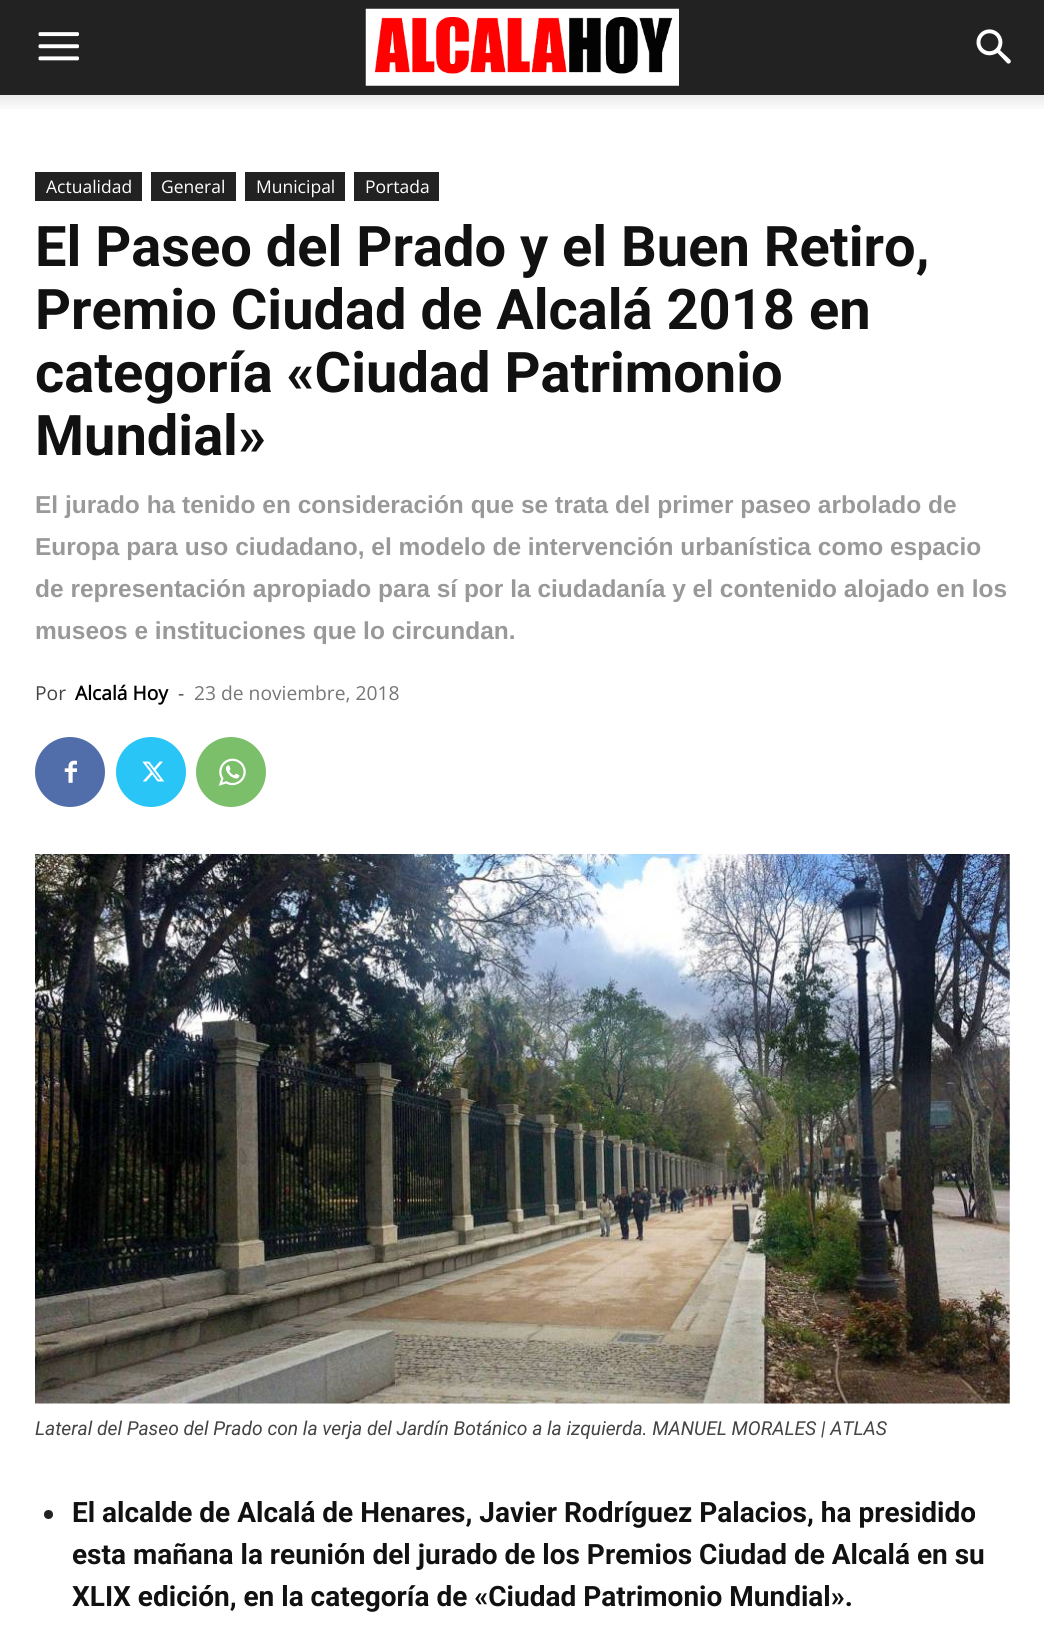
import math
import cairo

surface = cairo.ImageSurface(cairo.FORMAT_RGB24, 1044, 1640)
ctx = cairo.Context(surface)
options = cairo.FontOptions()
options.set_hint_metrics(cairo.HINT_METRICS_OFF)
options.set_hint_style(cairo.HINT_STYLE_NONE)
ctx.set_font_options(options)
ctx.set_miter_limit(4)


def set_color(code):
    ctx.set_source_rgb(*(v / 255 for v in bytes.fromhex(code[-6:])))


def draw_text(x, y, s, family, size, color, bold=False, italic=False):
    ctx.select_font_face(family, cairo.FONT_SLANT_ITALIC if italic else cairo.FONT_SLANT_NORMAL, cairo.FONT_WEIGHT_BOLD if bold else cairo.FONT_WEIGHT_NORMAL)
    ctx.set_font_size(size)
    set_color(color)
    ctx.move_to(x, y)
    ctx.show_text(s)


def fill_rect(x, y, w, h, color):
    set_color(color)
    ctx.rectangle(x, y, w, h)
    ctx.fill()


def draw_image(path, x, y, w, h):
    ctx.save()
    ctx.set_source_surface(cairo.ImageSurface.create_from_png(path), x, y)
    ctx.rectangle(x, y, w, h)
    ctx.fill()
    ctx.restore()


set_color("#ffffff")
ctx.paint()
fill_rect(0, 0, 1044, 95, "#222222")
draw_image("assets/img1.png", 38, 32, 41, 29)
draw_image("assets/img2.png", 365, 8, 314, 78)
draw_image("assets/img3.png", 976, 29, 35, 35)
draw_image("assets/img4.png", 0, 95, 1044, 14)
fill_rect(35, 172, 107, 29, "#222222")
draw_text(46, 193, "Actualidad", "Open Sans", 17.5, "#ffffff")
fill_rect(151, 172, 85, 29, "#222222")
draw_text(161, 193, "General", "Open Sans", 17.5, "#ffffff")
fill_rect(245, 172, 100, 29, "#222222")
draw_text(256, 193, "Municipal", "Open Sans", 17.5, "#ffffff")
fill_rect(354, 172, 85, 29, "#222222")
draw_text(365, 193, "Portada", "Open Sans", 17.5, "#ffffff")
draw_text(35, 266, "El Paseo del Prado y el Buen Retiro,", "Roboto", 56, "#111111", bold=True)
draw_text(35, 329, "Premio Ciudad de Alcalá 2018 en", "Roboto", 56, "#111111", bold=True)
draw_text(35, 392, "categoría «Ciudad Patrimonio", "Roboto", 56, "#111111", bold=True)
draw_text(35, 455, "Mundial»", "Roboto", 56, "#111111", bold=True)
draw_text(35, 513, "El jurado ha tenido en consideración que se trata del primer paseo arbolado de", "Liberation Sans", 24.5, "#999999", bold=True)
draw_text(35, 555, "Europa para uso ciudadano, el modelo de intervención urbanística como espacio", "Liberation Sans", 24.5, "#999999", bold=True)
draw_text(35, 597, "de representación apropiado para sí por la ciudadanía y el contenido alojado en los", "Liberation Sans", 24.5, "#999999", bold=True)
draw_text(35, 639, "museos e instituciones que lo circundan.", "Liberation Sans", 24.5, "#999999", bold=True)
draw_text(35, 700, "Por", "Open Sans", 19.25, "#444444")
draw_text(75, 700, "Alcalá Hoy", "Open Sans", 19.25, "#000000", bold=True)
draw_text(178, 700, "-", "Open Sans", 19.25, "#444444")
draw_text(194, 700, "23 de noviembre, 2018", "Open Sans", 19.25, "#767676")
set_color("#516eab")
ctx.new_path()
ctx.arc(70, 772, 35, 0, 2 * math.pi)
ctx.fill()
draw_image("assets/img5.png", 64, 760, 13, 23)
set_color("#29c5f6")
ctx.arc(151, 772, 35, 0, 2 * math.pi)
ctx.fill()
draw_image("assets/img6.png", 142, 761, 23, 21)
set_color("#7bbf6a")
ctx.arc(231, 772, 35, 0, 2 * math.pi)
ctx.fill()
draw_image("assets/img7.png", 218, 758, 28, 28)
draw_image("assets/img8.png", 35, 854, 975, 550)
draw_text(35, 1435, "Lateral del Paseo del Prado con la verja del Jardín Botánico a la izquierda. MANUEL MORALES | ATLAS", "Roboto", 19.25, "#444444", italic=True)
set_color("#222222")
ctx.new_path()
ctx.arc(48.5, 1514.5, 4.5, 0, 2 * math.pi)
ctx.fill()
draw_text(72, 1522, "El alcalde de Alcalá de Henares, Javier Rodríguez Palacios, ha presidido", "Roboto", 28, "#111111", bold=True)
draw_text(72, 1564, "esta mañana la reunión del jurado de los Premios Ciudad de Alcalá en su", "Roboto", 28, "#111111", bold=True)
draw_text(72, 1606, "XLIX edición, en la categoría de «Ciudad Patrimonio Mundial».", "Roboto", 28, "#111111", bold=True)
surface.write_to_png("output.png")
